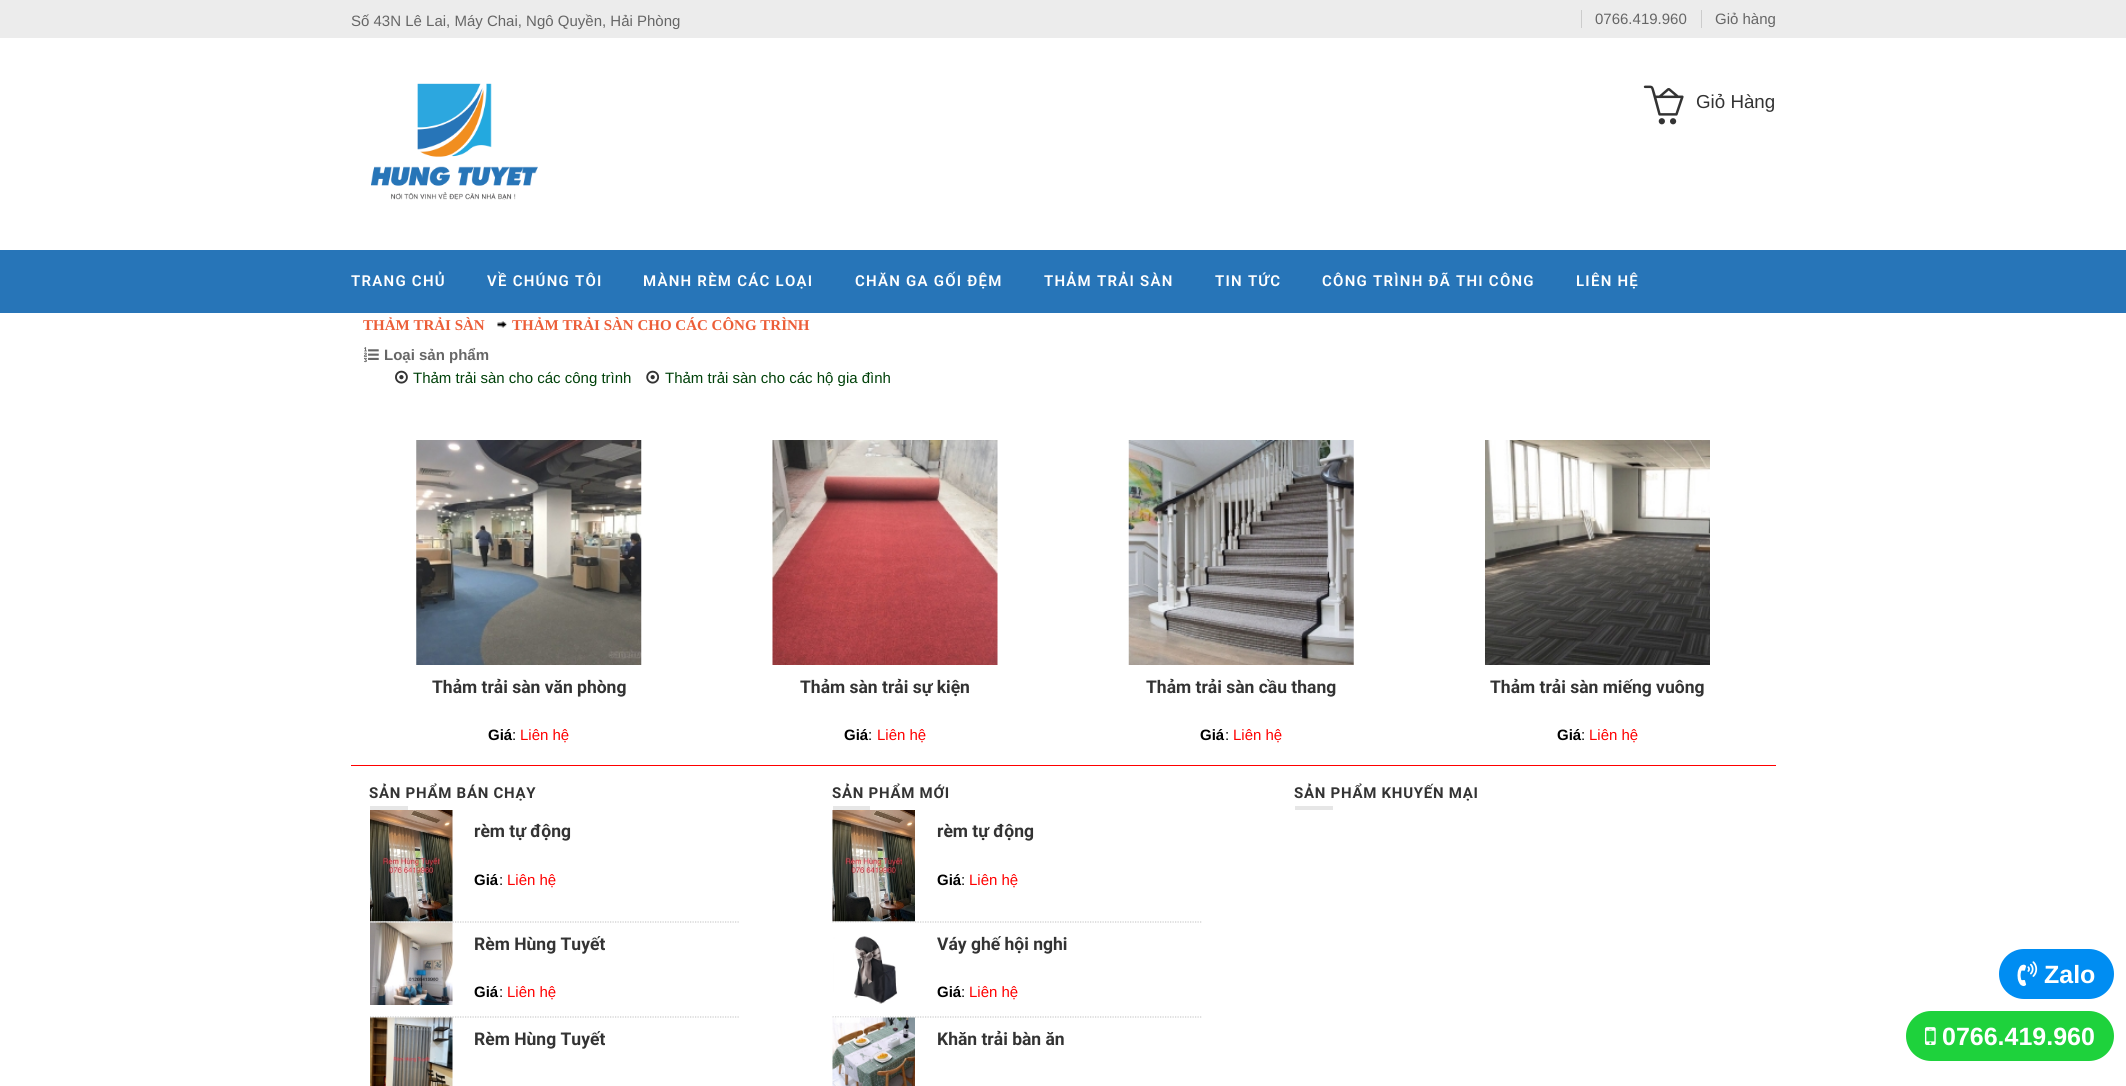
import math
import cairo

surface = cairo.ImageSurface(cairo.FORMAT_RGB24, 2126, 1086)
ctx = cairo.Context(surface)
options = cairo.FontOptions()
options.set_hint_metrics(cairo.HINT_METRICS_OFF)
options.set_hint_style(cairo.HINT_STYLE_NONE)
ctx.set_font_options(options)
ctx.set_miter_limit(4)


def set_color(code):
    ctx.set_source_rgb(*(v / 255 for v in bytes.fromhex(code[-6:])))


def draw_text(x, y, s, family, size, color, bold=False, italic=False):
    ctx.select_font_face(family, cairo.FONT_SLANT_ITALIC if italic else cairo.FONT_SLANT_NORMAL, cairo.FONT_WEIGHT_BOLD if bold else cairo.FONT_WEIGHT_NORMAL)
    ctx.set_font_size(size)
    set_color(color)
    ctx.move_to(x, y)
    ctx.show_text(s)


def draw_spaced(x, y, s, letter, word):
    ctx.move_to(x, y)
    for ch in s:
        ctx.show_text(ch)
        ctx.rel_move_to(letter + word * (ch == ' '), 0)


def fill_rect(x, y, w, h, color):
    set_color(color)
    ctx.rectangle(x, y, w, h)
    ctx.fill()


def rounded_rect(x, y, w, h, r):
    ctx.new_sub_path()
    for i, (u, v) in enumerate([(x + w - r, y + h - r), (x + r, y + h - r), (x + r, y + r), (x + w - r, y + r)]):
        ctx.arc(u, v, r, i * math.pi / 2, (i + 1) * math.pi / 2)
    ctx.close_path()


def draw_image(path, x, y, w, h):
    ctx.save()
    ctx.set_source_surface(cairo.ImageSurface.create_from_png(path), x, y)
    ctx.rectangle(x, y, w, h)
    ctx.fill()
    ctx.restore()


set_color("#ffffff")
ctx.paint()
fill_rect(0, 0, 2126, 38, "#ececec")
draw_text(351, 26, "Số 43N Lê Lai, Máy Chai, Ngô Quyền, Hải Phòng", "Liberation Sans", 15, "#666666")
draw_text(1595, 24, "0766.419.960", "Liberation Sans", 15, "#666666")
fill_rect(1581, 10, 1, 18, "#cccccc")
draw_text(1715, 24, "Giỏ hàng", "Liberation Sans", 15, "#666666")
fill_rect(1701, 10, 1, 18, "#cccccc")
draw_image("assets/img1.png", 371, 83, 167, 117)
draw_image("assets/img2.png", 1643, 85, 41, 40)
draw_text(1696, 108, "Giỏ Hàng", "Liberation Sans", 18.75, "#333333")
fill_rect(0, 250, 2126, 63, "#2775b8")
ctx.select_font_face("Roboto SemiBold")
ctx.set_font_size(15)
set_color("#ffffff")
draw_spaced(351, 286, "TRANG CHỦ", 1.25, 0)
draw_spaced(487, 286, "VỀ CHÚNG TÔI", 1.25, 0)
draw_spaced(643, 286, "MÀNH RÈM CÁC LOẠI", 1.25, 0)
draw_spaced(855, 286, "CHĂN GA GỐI ĐỆM", 1.25, 0)
draw_spaced(1044, 286, "THẢM TRẢI SÀN", 1.25, 0)
draw_spaced(1215, 286, "TIN TỨC", 1.25, 0)
draw_spaced(1322, 286, "CÔNG TRÌNH ĐÃ THI CÔNG", 1.25, 0)
draw_spaced(1576, 286, "LIÊN HỆ", 1.25, 0)
draw_text(363, 330, "THẢM TRẢI SÀN", "Liberation Serif", 15, "#ec5e38", bold=True)
draw_image("assets/img3.png", 497, 321, 10, 7)
draw_text(512, 330, "THẢM TRẢI SÀN CHO CÁC CÔNG TRÌNH", "Liberation Serif", 15, "#ec5e38", bold=True)
draw_image("assets/img4.png", 363, 347, 16, 16)
draw_text(384, 360, "Loại sản phẩm", "Liberation Sans", 15, "#666666", bold=True)
draw_image("assets/img5.png", 395, 370, 13, 14)
draw_text(413, 383, "Thảm trải sàn cho các công trình", "Liberation Sans", 15, "#004109")
draw_image("assets/img6.png", 646, 370, 14, 14)
draw_text(665, 383, "Thảm trải sàn cho các hộ gia đình", "Liberation Sans", 15, "#004109")
draw_image("assets/img7.png", 416, 440, 226, 225)
draw_text(432, 693, "Thảm trải sàn văn phòng", "Roboto", 17.5, "#333333", bold=True)
draw_text(488, 740, "Giá", "Liberation Sans", 15, "#000000", bold=True)
draw_text(512, 740, ":", "Liberation Sans", 15, "#000000")
draw_text(520, 740, "Liên hệ", "Liberation Sans", 15, "#ff0000")
draw_image("assets/img8.png", 772, 440, 226, 225)
draw_text(800, 693, "Thảm sàn trải sự kiện", "Roboto", 17.5, "#333333", bold=True)
draw_text(844, 740, "Giá", "Liberation Sans", 15, "#000000", bold=True)
draw_text(868, 740, ":", "Liberation Sans", 15, "#000000")
draw_text(877, 740, "Liên hệ", "Liberation Sans", 15, "#ff0000")
draw_image("assets/img9.png", 1128, 440, 226, 225)
draw_text(1146, 693, "Thảm trải sàn cầu thang", "Roboto", 17.5, "#333333", bold=True)
draw_text(1200, 740, "Giá", "Liberation Sans", 15, "#000000", bold=True)
draw_text(1225, 740, ":", "Liberation Sans", 15, "#000000")
draw_text(1233, 740, "Liên hệ", "Liberation Sans", 15, "#ff0000")
draw_image("assets/img10.png", 1485, 440, 225, 225)
draw_text(1490, 693, "Thảm trải sàn miếng vuông", "Roboto", 17.5, "#333333", bold=True)
draw_text(1557, 740, "Giá", "Liberation Sans", 15, "#000000", bold=True)
draw_text(1581, 740, ":", "Liberation Sans", 15, "#000000")
draw_text(1589, 740, "Liên hệ", "Liberation Sans", 15, "#ff0000")
fill_rect(351, 765, 1425, 1, "#ff0000")
ctx.select_font_face("Roboto", cairo.FONT_SLANT_NORMAL, cairo.FONT_WEIGHT_BOLD)
set_color("#333333")
draw_spaced(369, 798, "SẢN PHẨM BÁN CHẠY", 0.75, 0)
fill_rect(370, 806, 38, 4, "#e6e6e6")
ctx.new_path()
ctx.move_to(370, 922)
ctx.line_to(740, 922)
set_color("#cccccc")
ctx.set_line_width(1.2)
ctx.set_dash([1.25, 1.25])
ctx.stroke()
draw_image("assets/img11.png", 370, 810, 83, 112)
draw_text(474, 837, "rèm tự động", "Roboto", 17.5, "#333333", bold=True)
draw_text(474, 885, "Giá", "Liberation Sans", 15, "#000000", bold=True)
draw_text(499, 885, ":", "Liberation Sans", 15, "#000000")
draw_text(507, 885, "Liên hệ", "Liberation Sans", 15, "#ff0000")
ctx.new_path()
ctx.move_to(370, 1017)
ctx.line_to(740, 1017)
set_color("#cccccc")
ctx.stroke()
draw_image("assets/img12.png", 370, 922, 83, 83)
draw_text(474, 950, "Rèm Hùng Tuyết", "Roboto", 17.5, "#333333", bold=True)
draw_text(474, 997, "Giá", "Liberation Sans", 15, "#000000", bold=True)
draw_text(499, 997, ":", "Liberation Sans", 15, "#000000")
draw_text(507, 997, "Liên hệ", "Liberation Sans", 15, "#ff0000")
draw_image("assets/img13.png", 370, 1017, 83, 69)
draw_text(474, 1045, "Rèm Hùng Tuyết", "Roboto", 17.5, "#333333", bold=True)
ctx.set_font_size(15)
draw_spaced(832, 798, "SẢN PHẨM MỚI", 0.75, 0)
fill_rect(833, 806, 37, 4, "#e6e6e6")
ctx.new_path()
ctx.move_to(832.5, 922)
ctx.line_to(1202.5, 922)
set_color("#cccccc")
ctx.stroke()
draw_image("assets/img14.png", 832, 810, 83, 112)
draw_text(937, 837, "rèm tự động", "Roboto", 17.5, "#333333", bold=True)
draw_text(937, 885, "Giá", "Liberation Sans", 15, "#000000", bold=True)
draw_text(961, 885, ":", "Liberation Sans", 15, "#000000")
draw_text(969, 885, "Liên hệ", "Liberation Sans", 15, "#ff0000")
ctx.new_path()
ctx.move_to(832.5, 1017)
ctx.line_to(1202.5, 1017)
set_color("#cccccc")
ctx.stroke()
draw_image("assets/img15.png", 833, 922, 81, 82)
draw_text(937, 950, "Váy ghế hội nghi", "Roboto", 17.5, "#333333", bold=True)
draw_text(937, 997, "Giá", "Liberation Sans", 15, "#000000", bold=True)
draw_text(961, 997, ":", "Liberation Sans", 15, "#000000")
draw_text(969, 997, "Liên hệ", "Liberation Sans", 15, "#ff0000")
draw_image("assets/img16.png", 832, 1017, 83, 69)
draw_text(937, 1045, "Khăn trải bàn ăn", "Roboto", 17.5, "#333333", bold=True)
ctx.set_font_size(15)
draw_spaced(1294, 798, "SẢN PHẨM KHUYẾN MẠI", 0.75, 0)
fill_rect(1295, 806, 38, 4, "#e6e6e6")
set_color("#008df2")
rounded_rect(1999, 949, 115, 50, 25)
ctx.fill()
draw_image("assets/img17.png", 2017, 961, 21, 26)
draw_text(2044, 983, "Zalo", "Liberation Sans", 25, "#ffffff", bold=True)
set_color("#1ed23c")
rounded_rect(1906, 1011, 208, 50, 25)
ctx.fill()
draw_image("assets/img18.png", 1925, 1027, 11, 18)
draw_text(1942, 1045, "0766.419.960", "Liberation Sans", 25, "#ffffff", bold=True)
surface.write_to_png("output.png")
